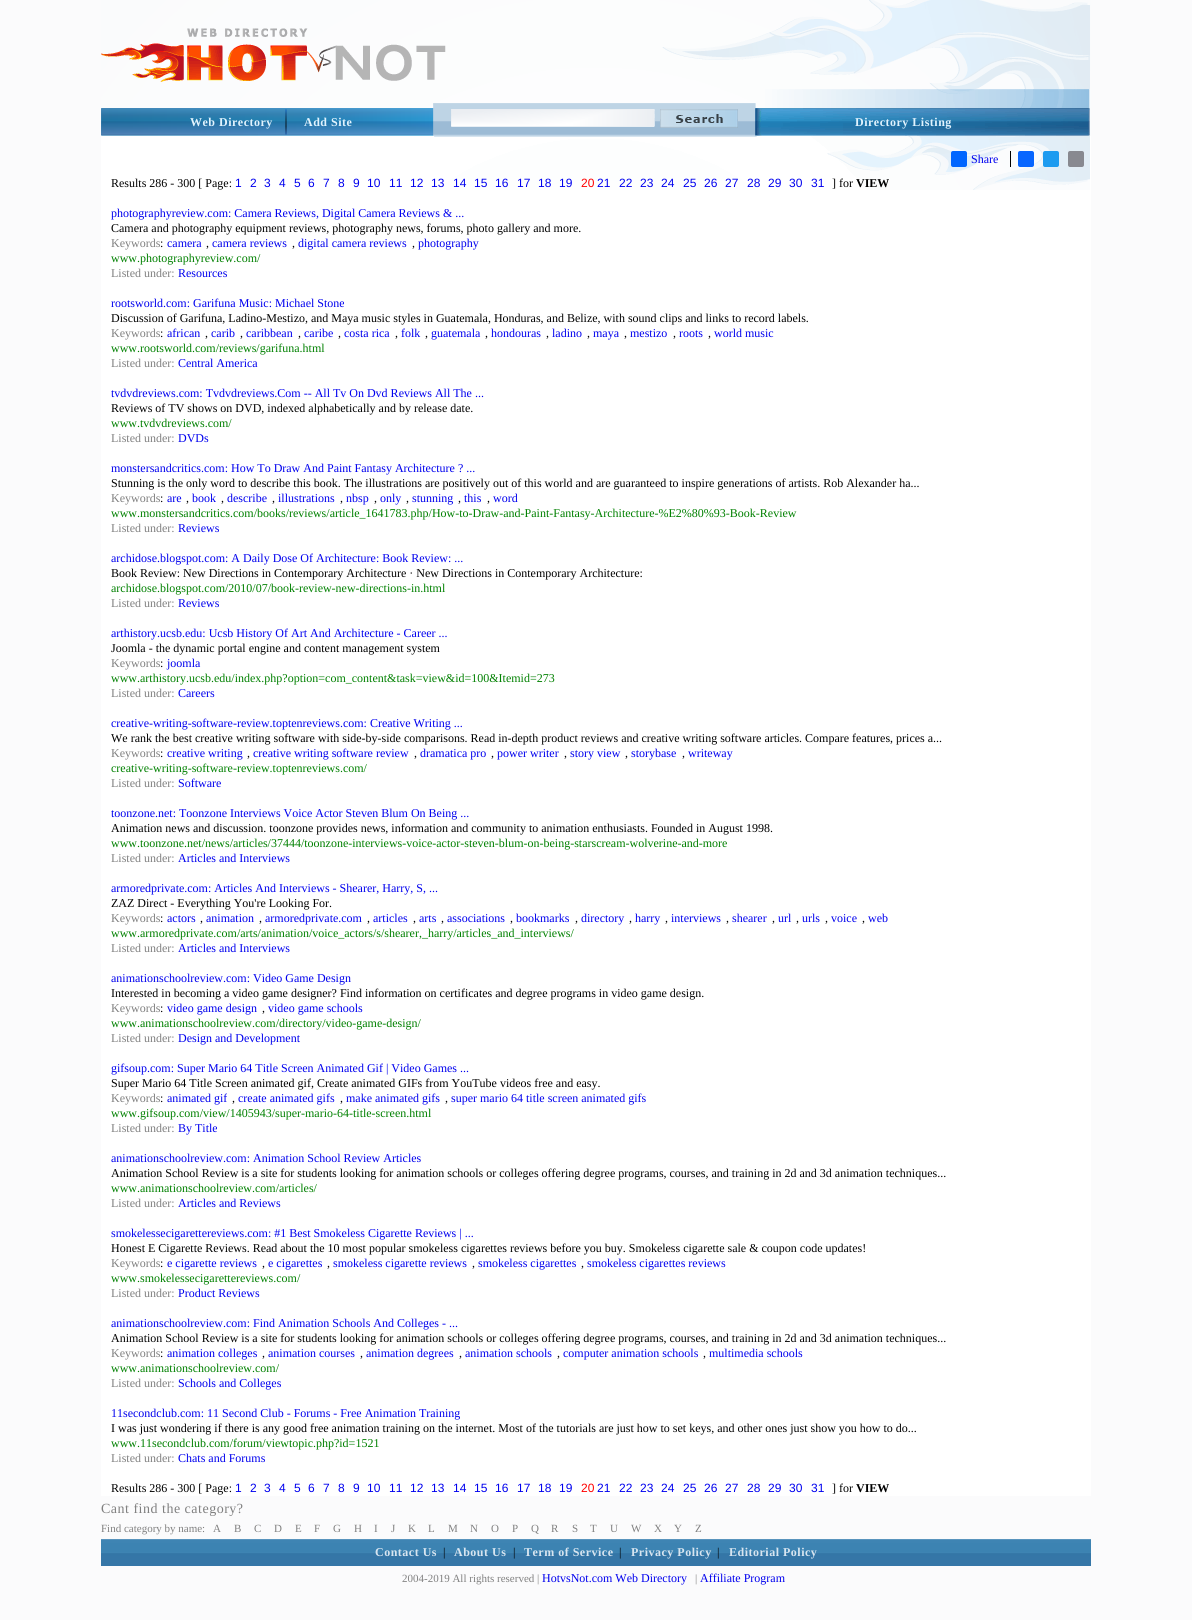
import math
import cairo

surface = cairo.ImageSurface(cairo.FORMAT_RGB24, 1192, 1620)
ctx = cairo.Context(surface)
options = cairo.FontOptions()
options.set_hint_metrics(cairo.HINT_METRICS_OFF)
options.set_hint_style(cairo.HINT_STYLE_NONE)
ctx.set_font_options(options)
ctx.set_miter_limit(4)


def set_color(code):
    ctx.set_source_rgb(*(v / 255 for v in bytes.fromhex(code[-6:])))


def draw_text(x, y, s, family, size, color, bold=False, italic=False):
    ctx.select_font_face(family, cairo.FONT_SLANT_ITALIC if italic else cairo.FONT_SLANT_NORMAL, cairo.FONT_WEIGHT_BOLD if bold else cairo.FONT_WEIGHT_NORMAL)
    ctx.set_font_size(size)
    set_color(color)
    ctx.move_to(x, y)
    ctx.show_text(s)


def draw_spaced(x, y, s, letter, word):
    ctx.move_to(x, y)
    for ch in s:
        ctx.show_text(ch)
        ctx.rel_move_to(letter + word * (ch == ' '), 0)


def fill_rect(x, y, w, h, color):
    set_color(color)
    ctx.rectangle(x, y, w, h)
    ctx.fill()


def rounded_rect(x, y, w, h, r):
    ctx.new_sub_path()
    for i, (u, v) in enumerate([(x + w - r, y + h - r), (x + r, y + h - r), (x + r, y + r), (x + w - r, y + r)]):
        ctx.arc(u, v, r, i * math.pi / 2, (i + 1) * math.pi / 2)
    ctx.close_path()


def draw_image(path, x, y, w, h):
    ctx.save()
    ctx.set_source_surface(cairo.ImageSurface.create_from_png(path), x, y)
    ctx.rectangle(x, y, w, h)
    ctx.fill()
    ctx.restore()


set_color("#fbfbfc")
ctx.paint()
draw_image("assets/img1.png", 101, 0, 990, 89)
draw_image("assets/img2.png", 101, 28, 345, 54)
draw_image("assets/img3.png", 101, 89, 332, 47)
ctx.select_font_face("Liberation Serif", cairo.FONT_SLANT_NORMAL, cairo.FONT_WEIGHT_BOLD)
ctx.set_font_size(12)
set_color("#e1f3fe")
draw_spaced(190, 126, "Web Directory", 0.5, 0)
draw_image("assets/img4.png", 285, 109, 2, 26)
draw_spaced(304, 126, "Add Site", 0.5, 0)
draw_image("assets/img5.png", 433, 89, 322, 47)
draw_image("assets/img6.png", 451, 109, 204, 18)
draw_image("assets/img7.png", 660, 109, 78, 19)
draw_image("assets/img8.png", 755, 89, 336, 47)
draw_spaced(855, 126, "Directory Listing", 0.5, 0)
fill_rect(101, 136, 990, 1360, "#ffffff")
draw_image("assets/img9.png", 434, 136, 656, 54)
set_color("#0166ff")
rounded_rect(951, 151, 16, 16, 2)
ctx.fill()
draw_text(971, 163, "Share", "Liberation Serif", 12, "#0000ee")
fill_rect(1010, 151, 1, 16, "#000000")
set_color("#0866ff")
rounded_rect(1018, 151, 16, 16, 2)
ctx.fill()
set_color("#1d9bf0")
rounded_rect(1043, 151, 16, 16, 2)
ctx.fill()
set_color("#888990")
rounded_rect(1068, 151, 16, 16, 2)
ctx.fill()
draw_text(111, 187, "Results 286 - 300 [ Page:", "Liberation Serif", 12, "#000000")
draw_text(235, 187, "1", "Liberation Sans", 12, "#0000ee")
draw_text(250, 187, "2", "Liberation Sans", 12, "#0000ee")
draw_text(264, 187, "3", "Liberation Sans", 12, "#0000ee")
draw_text(279, 187, "4", "Liberation Sans", 12, "#0000ee")
draw_text(294, 187, "5", "Liberation Sans", 12, "#0000ee")
draw_text(308, 187, "6", "Liberation Sans", 12, "#0000ee")
draw_text(323, 187, "7", "Liberation Sans", 12, "#0000ee")
draw_text(338, 187, "8", "Liberation Sans", 12, "#0000ee")
draw_text(353, 187, "9", "Liberation Sans", 12, "#0000ee")
draw_text(367, 187, "10", "Liberation Sans", 12, "#0000ee")
draw_text(389, 187, "11", "Liberation Sans", 12, "#0000ee")
draw_text(410, 187, "12", "Liberation Sans", 12, "#0000ee")
draw_text(431, 187, "13", "Liberation Sans", 12, "#0000ee")
draw_text(453, 187, "14", "Liberation Sans", 12, "#0000ee")
draw_text(474, 187, "15", "Liberation Sans", 12, "#0000ee")
draw_text(495, 187, "16", "Liberation Sans", 12, "#0000ee")
draw_text(517, 187, "17", "Liberation Sans", 12, "#0000ee")
draw_text(538, 187, "18", "Liberation Sans", 12, "#0000ee")
draw_text(559, 187, "19", "Liberation Sans", 12, "#0000ee")
draw_text(581, 187, "20", "Liberation Sans", 12, "#ff0000")
draw_text(597, 187, "21", "Liberation Sans", 12, "#0000ee")
draw_text(619, 187, "22", "Liberation Sans", 12, "#0000ee")
draw_text(640, 187, "23", "Liberation Sans", 12, "#0000ee")
draw_text(661, 187, "24", "Liberation Sans", 12, "#0000ee")
draw_text(683, 187, "25", "Liberation Sans", 12, "#0000ee")
draw_text(704, 187, "26", "Liberation Sans", 12, "#0000ee")
draw_text(725, 187, "27", "Liberation Sans", 12, "#0000ee")
draw_text(747, 187, "28", "Liberation Sans", 12, "#0000ee")
draw_text(768, 187, "29", "Liberation Sans", 12, "#0000ee")
draw_text(789, 187, "30", "Liberation Sans", 12, "#0000ee")
draw_text(811, 187, "31", "Liberation Sans", 12, "#0000ee")
draw_text(832, 187, "] for", "Liberation Serif", 12, "#000000")
draw_text(856, 187, "VIEW", "Liberation Serif", 12, "#000000", bold=True)
draw_text(111, 217, "photographyreview.com: Camera Reviews, Digital Camera Reviews & ...", "Liberation Serif", 12, "#0000ee")
draw_text(111, 232, "Camera and photography equipment reviews, photography news, forums, photo gallery and more.", "Liberation Serif", 12, "#000000")
draw_text(111, 247, "Keywords", "Liberation Serif", 12, "#808080")
draw_text(160, 247, ":", "Liberation Serif", 12, "#000000")
draw_text(167, 247, "camera", "Liberation Serif", 12, "#0000ee")
draw_text(206, 247, ",", "Liberation Serif", 12, "#000000")
draw_text(212, 247, "camera reviews", "Liberation Serif", 12, "#0000ee")
draw_text(292, 247, ",", "Liberation Serif", 12, "#000000")
draw_text(298, 247, "digital camera reviews", "Liberation Serif", 12, "#0000ee")
draw_text(412, 247, ",", "Liberation Serif", 12, "#000000")
draw_text(418, 247, "photography", "Liberation Serif", 12, "#0000ee")
draw_text(111, 262, "www.photographyreview.com/", "Liberation Serif", 12, "#008000")
draw_text(111, 277, "Listed under:", "Liberation Serif", 12, "#808080")
draw_text(178, 277, "Resources", "Liberation Serif", 12, "#0000ee")
draw_text(111, 307, "rootsworld.com: Garifuna Music: Michael Stone", "Liberation Serif", 12, "#0000ee")
draw_text(111, 322, "Discussion of Garifuna, Ladino-Mestizo, and Maya music styles in Guatemala, Honduras, and Belize, with sound clips and links to record labels.", "Liberation Serif", 12, "#000000")
draw_text(111, 337, "Keywords", "Liberation Serif", 12, "#808080")
draw_text(160, 337, ":", "Liberation Serif", 12, "#000000")
draw_text(167, 337, "african", "Liberation Serif", 12, "#0000ee")
draw_text(205, 337, ",", "Liberation Serif", 12, "#000000")
draw_text(211, 337, "carib", "Liberation Serif", 12, "#0000ee")
draw_text(240, 337, ",", "Liberation Serif", 12, "#000000")
draw_text(246, 337, "caribbean", "Liberation Serif", 12, "#0000ee")
draw_text(298, 337, ",", "Liberation Serif", 12, "#000000")
draw_text(304, 337, "caribe", "Liberation Serif", 12, "#0000ee")
draw_text(338, 337, ",", "Liberation Serif", 12, "#000000")
draw_text(344, 337, "costa rica", "Liberation Serif", 12, "#0000ee")
draw_text(395, 337, ",", "Liberation Serif", 12, "#000000")
draw_text(401, 337, "folk", "Liberation Serif", 12, "#0000ee")
draw_text(425, 337, ",", "Liberation Serif", 12, "#000000")
draw_text(431, 337, "guatemala", "Liberation Serif", 12, "#0000ee")
draw_text(485, 337, ",", "Liberation Serif", 12, "#000000")
draw_text(491, 337, "hondouras", "Liberation Serif", 12, "#0000ee")
draw_text(546, 337, ",", "Liberation Serif", 12, "#000000")
draw_text(552, 337, "ladino", "Liberation Serif", 12, "#0000ee")
draw_text(587, 337, ",", "Liberation Serif", 12, "#000000")
draw_text(593, 337, "maya", "Liberation Serif", 12, "#0000ee")
draw_text(624, 337, ",", "Liberation Serif", 12, "#000000")
draw_text(630, 337, "mestizo", "Liberation Serif", 12, "#0000ee")
draw_text(673, 337, ",", "Liberation Serif", 12, "#000000")
draw_text(679, 337, "roots", "Liberation Serif", 12, "#0000ee")
draw_text(708, 337, ",", "Liberation Serif", 12, "#000000")
draw_text(714, 337, "world music", "Liberation Serif", 12, "#0000ee")
draw_text(111, 352, "www.rootsworld.com/reviews/garifuna.html", "Liberation Serif", 12, "#008000")
draw_text(111, 367, "Listed under:", "Liberation Serif", 12, "#808080")
draw_text(178, 367, "Central America", "Liberation Serif", 12, "#0000ee")
draw_text(111, 397, "tvdvdreviews.com: Tvdvdreviews.Com -- All Tv On Dvd Reviews All The ...", "Liberation Serif", 12, "#0000ee")
draw_text(111, 412, "Reviews of TV shows on DVD, indexed alphabetically and by release date.", "Liberation Serif", 12, "#000000")
draw_text(111, 427, "www.tvdvdreviews.com/", "Liberation Serif", 12, "#008000")
draw_text(111, 442, "Listed under:", "Liberation Serif", 12, "#808080")
draw_text(178, 442, "DVDs", "Liberation Serif", 12, "#0000ee")
draw_text(111, 472, "monstersandcritics.com: How To Draw And Paint Fantasy Architecture ? ...", "Liberation Serif", 12, "#0000ee")
draw_text(111, 487, "Stunning is the only word to describe this book. The illustrations are positively out of this world and are guaranteed to inspire generations of artists. Rob Alexander ha...", "Liberation Serif", 12, "#000000")
draw_text(111, 502, "Keywords", "Liberation Serif", 12, "#808080")
draw_text(160, 502, ":", "Liberation Serif", 12, "#000000")
draw_text(167, 502, "are", "Liberation Serif", 12, "#0000ee")
draw_text(186, 502, ",", "Liberation Serif", 12, "#000000")
draw_text(192, 502, "book", "Liberation Serif", 12, "#0000ee")
draw_text(221, 502, ",", "Liberation Serif", 12, "#000000")
draw_text(227, 502, "describe", "Liberation Serif", 12, "#0000ee")
draw_text(272, 502, ",", "Liberation Serif", 12, "#000000")
draw_text(278, 502, "illustrations", "Liberation Serif", 12, "#0000ee")
draw_text(340, 502, ",", "Liberation Serif", 12, "#000000")
draw_text(346, 502, "nbsp", "Liberation Serif", 12, "#0000ee")
draw_text(374, 502, ",", "Liberation Serif", 12, "#000000")
draw_text(380, 502, "only", "Liberation Serif", 12, "#0000ee")
draw_text(406, 502, ",", "Liberation Serif", 12, "#000000")
draw_text(412, 502, "stunning", "Liberation Serif", 12, "#0000ee")
draw_text(458, 502, ",", "Liberation Serif", 12, "#000000")
draw_text(464, 502, "this", "Liberation Serif", 12, "#0000ee")
draw_text(487, 502, ",", "Liberation Serif", 12, "#000000")
draw_text(493, 502, "word", "Liberation Serif", 12, "#0000ee")
draw_text(111, 517, "www.monstersandcritics.com/books/reviews/article_1641783.php/How-to-Draw-and-Paint-Fantasy-Architecture-%E2%80%93-Book-Review", "Liberation Serif", 12, "#008000")
draw_text(111, 532, "Listed under:", "Liberation Serif", 12, "#808080")
draw_text(178, 532, "Reviews", "Liberation Serif", 12, "#0000ee")
draw_text(111, 562, "archidose.blogspot.com: A Daily Dose Of Architecture: Book Review: ...", "Liberation Serif", 12, "#0000ee")
draw_text(111, 577, "Book Review: New Directions in Contemporary Architecture · New Directions in Contemporary Architecture:", "Liberation Serif", 12, "#000000")
draw_text(111, 592, "archidose.blogspot.com/2010/07/book-review-new-directions-in.html", "Liberation Serif", 12, "#008000")
draw_text(111, 607, "Listed under:", "Liberation Serif", 12, "#808080")
draw_text(178, 607, "Reviews", "Liberation Serif", 12, "#0000ee")
draw_text(111, 637, "arthistory.ucsb.edu: Ucsb History Of Art And Architecture - Career ...", "Liberation Serif", 12, "#0000ee")
draw_text(111, 652, "Joomla - the dynamic portal engine and content management system", "Liberation Serif", 12, "#000000")
draw_text(111, 667, "Keywords", "Liberation Serif", 12, "#808080")
draw_text(160, 667, ":", "Liberation Serif", 12, "#000000")
draw_text(167, 667, "joomla", "Liberation Serif", 12, "#0000ee")
draw_text(111, 682, "www.arthistory.ucsb.edu/index.php?option=com_content&task=view&id=100&Itemid=273", "Liberation Serif", 12, "#008000")
draw_text(111, 697, "Listed under:", "Liberation Serif", 12, "#808080")
draw_text(178, 697, "Careers", "Liberation Serif", 12, "#0000ee")
draw_text(111, 727, "creative-writing-software-review.toptenreviews.com: Creative Writing ...", "Liberation Serif", 12, "#0000ee")
draw_text(111, 742, "We rank the best creative writing software with side-by-side comparisons. Read in-depth product reviews and creative writing software articles. Compare features, prices a...", "Liberation Serif", 12, "#000000")
draw_text(111, 757, "Keywords", "Liberation Serif", 12, "#808080")
draw_text(160, 757, ":", "Liberation Serif", 12, "#000000")
draw_text(167, 757, "creative writing", "Liberation Serif", 12, "#0000ee")
draw_text(247, 757, ",", "Liberation Serif", 12, "#000000")
draw_text(253, 757, "creative writing software review", "Liberation Serif", 12, "#0000ee")
draw_text(414, 757, ",", "Liberation Serif", 12, "#000000")
draw_text(420, 757, "dramatica pro", "Liberation Serif", 12, "#0000ee")
draw_text(491, 757, ",", "Liberation Serif", 12, "#000000")
draw_text(497, 757, "power writer", "Liberation Serif", 12, "#0000ee")
draw_text(564, 757, ",", "Liberation Serif", 12, "#000000")
draw_text(570, 757, "story view", "Liberation Serif", 12, "#0000ee")
draw_text(625, 757, ",", "Liberation Serif", 12, "#000000")
draw_text(631, 757, "storybase", "Liberation Serif", 12, "#0000ee")
draw_text(682, 757, ",", "Liberation Serif", 12, "#000000")
draw_text(688, 757, "writeway", "Liberation Serif", 12, "#0000ee")
draw_text(111, 772, "creative-writing-software-review.toptenreviews.com/", "Liberation Serif", 12, "#008000")
draw_text(111, 787, "Listed under:", "Liberation Serif", 12, "#808080")
draw_text(178, 787, "Software", "Liberation Serif", 12, "#0000ee")
draw_text(111, 817, "toonzone.net: Toonzone Interviews Voice Actor Steven Blum On Being ...", "Liberation Serif", 12, "#0000ee")
draw_text(111, 832, "Animation news and discussion. toonzone provides news, information and community to animation enthusiasts. Founded in August 1998.", "Liberation Serif", 12, "#000000")
draw_text(111, 847, "www.toonzone.net/news/articles/37444/toonzone-interviews-voice-actor-steven-blum-on-being-starscream-wolverine-and-more", "Liberation Serif", 12, "#008000")
draw_text(111, 862, "Listed under:", "Liberation Serif", 12, "#808080")
draw_text(178, 862, "Articles and Interviews", "Liberation Serif", 12, "#0000ee")
draw_text(111, 892, "armoredprivate.com: Articles And Interviews - Shearer, Harry, S, ...", "Liberation Serif", 12, "#0000ee")
draw_text(111, 907, "ZAZ Direct - Everything You're Looking For.", "Liberation Serif", 12, "#000000")
draw_text(111, 922, "Keywords", "Liberation Serif", 12, "#808080")
draw_text(160, 922, ":", "Liberation Serif", 12, "#000000")
draw_text(167, 922, "actors", "Liberation Serif", 12, "#0000ee")
draw_text(200, 922, ",", "Liberation Serif", 12, "#000000")
draw_text(206, 922, "animation", "Liberation Serif", 12, "#0000ee")
draw_text(259, 922, ",", "Liberation Serif", 12, "#000000")
draw_text(265, 922, "armoredprivate.com", "Liberation Serif", 12, "#0000ee")
draw_text(367, 922, ",", "Liberation Serif", 12, "#000000")
draw_text(373, 922, "articles", "Liberation Serif", 12, "#0000ee")
draw_text(413, 922, ",", "Liberation Serif", 12, "#000000")
draw_text(419, 922, "arts", "Liberation Serif", 12, "#0000ee")
draw_text(441, 922, ",", "Liberation Serif", 12, "#000000")
draw_text(447, 922, "associations", "Liberation Serif", 12, "#0000ee")
draw_text(510, 922, ",", "Liberation Serif", 12, "#000000")
draw_text(516, 922, "bookmarks", "Liberation Serif", 12, "#0000ee")
draw_text(575, 922, ",", "Liberation Serif", 12, "#000000")
draw_text(581, 922, "directory", "Liberation Serif", 12, "#0000ee")
draw_text(629, 922, ",", "Liberation Serif", 12, "#000000")
draw_text(635, 922, "harry", "Liberation Serif", 12, "#0000ee")
draw_text(665, 922, ",", "Liberation Serif", 12, "#000000")
draw_text(671, 922, "interviews", "Liberation Serif", 12, "#0000ee")
draw_text(726, 922, ",", "Liberation Serif", 12, "#000000")
draw_text(732, 922, "shearer", "Liberation Serif", 12, "#0000ee")
draw_text(772, 922, ",", "Liberation Serif", 12, "#000000")
draw_text(778, 922, "url", "Liberation Serif", 12, "#0000ee")
draw_text(796, 922, ",", "Liberation Serif", 12, "#000000")
draw_text(802, 922, "urls", "Liberation Serif", 12, "#0000ee")
draw_text(825, 922, ",", "Liberation Serif", 12, "#000000")
draw_text(831, 922, "voice", "Liberation Serif", 12, "#0000ee")
draw_text(862, 922, ",", "Liberation Serif", 12, "#000000")
draw_text(868, 922, "web", "Liberation Serif", 12, "#0000ee")
draw_text(111, 937, "www.armoredprivate.com/arts/animation/voice_actors/s/shearer,_harry/articles_and_interviews/", "Liberation Serif", 12, "#008000")
draw_text(111, 952, "Listed under:", "Liberation Serif", 12, "#808080")
draw_text(178, 952, "Articles and Interviews", "Liberation Serif", 12, "#0000ee")
draw_text(111, 982, "animationschoolreview.com: Video Game Design", "Liberation Serif", 12, "#0000ee")
draw_text(111, 997, "Interested in becoming a video game designer? Find information on certificates and degree programs in video game design.", "Liberation Serif", 12, "#000000")
draw_text(111, 1012, "Keywords", "Liberation Serif", 12, "#808080")
draw_text(160, 1012, ":", "Liberation Serif", 12, "#000000")
draw_text(167, 1012, "video game design", "Liberation Serif", 12, "#0000ee")
draw_text(262, 1012, ",", "Liberation Serif", 12, "#000000")
draw_text(268, 1012, "video game schools", "Liberation Serif", 12, "#0000ee")
draw_text(111, 1027, "www.animationschoolreview.com/directory/video-game-design/", "Liberation Serif", 12, "#008000")
draw_text(111, 1042, "Listed under:", "Liberation Serif", 12, "#808080")
draw_text(178, 1042, "Design and Development", "Liberation Serif", 12, "#0000ee")
draw_text(111, 1072, "gifsoup.com: Super Mario 64 Title Screen Animated Gif | Video Games ...", "Liberation Serif", 12, "#0000ee")
draw_text(111, 1087, "Super Mario 64 Title Screen animated gif, Create animated GIFs from YouTube videos free and easy.", "Liberation Serif", 12, "#000000")
draw_text(111, 1102, "Keywords", "Liberation Serif", 12, "#808080")
draw_text(160, 1102, ":", "Liberation Serif", 12, "#000000")
draw_text(167, 1102, "animated gif", "Liberation Serif", 12, "#0000ee")
draw_text(232, 1102, ",", "Liberation Serif", 12, "#000000")
draw_text(238, 1102, "create animated gifs", "Liberation Serif", 12, "#0000ee")
draw_text(340, 1102, ",", "Liberation Serif", 12, "#000000")
draw_text(346, 1102, "make animated gifs", "Liberation Serif", 12, "#0000ee")
draw_text(445, 1102, ",", "Liberation Serif", 12, "#000000")
draw_text(451, 1102, "super mario 64 title screen animated gifs", "Liberation Serif", 12, "#0000ee")
draw_text(111, 1117, "www.gifsoup.com/view/1405943/super-mario-64-title-screen.html", "Liberation Serif", 12, "#008000")
draw_text(111, 1132, "Listed under:", "Liberation Serif", 12, "#808080")
draw_text(178, 1132, "By Title", "Liberation Serif", 12, "#0000ee")
draw_text(111, 1162, "animationschoolreview.com: Animation School Review Articles", "Liberation Serif", 12, "#0000ee")
draw_text(111, 1177, "Animation School Review is a site for students looking for animation schools or colleges offering degree programs, courses, and training in 2d and 3d animation techniques...", "Liberation Serif", 12, "#000000")
draw_text(111, 1192, "www.animationschoolreview.com/articles/", "Liberation Serif", 12, "#008000")
draw_text(111, 1207, "Listed under:", "Liberation Serif", 12, "#808080")
draw_text(178, 1207, "Articles and Reviews", "Liberation Serif", 12, "#0000ee")
draw_text(111, 1237, "smokelessecigarettereviews.com: #1 Best Smokeless Cigarette Reviews | ...", "Liberation Serif", 12, "#0000ee")
draw_text(111, 1252, "Honest E Cigarette Reviews. Read about the 10 most popular smokeless cigarettes reviews before you buy. Smokeless cigarette sale & coupon code updates!", "Liberation Serif", 12, "#000000")
draw_text(111, 1267, "Keywords", "Liberation Serif", 12, "#808080")
draw_text(160, 1267, ":", "Liberation Serif", 12, "#000000")
draw_text(167, 1267, "e cigarette reviews", "Liberation Serif", 12, "#0000ee")
draw_text(262, 1267, ",", "Liberation Serif", 12, "#000000")
draw_text(268, 1267, "e cigarettes", "Liberation Serif", 12, "#0000ee")
draw_text(327, 1267, ",", "Liberation Serif", 12, "#000000")
draw_text(333, 1267, "smokeless cigarette reviews", "Liberation Serif", 12, "#0000ee")
draw_text(472, 1267, ",", "Liberation Serif", 12, "#000000")
draw_text(478, 1267, "smokeless cigarettes", "Liberation Serif", 12, "#0000ee")
draw_text(581, 1267, ",", "Liberation Serif", 12, "#000000")
draw_text(587, 1267, "smokeless cigarettes reviews", "Liberation Serif", 12, "#0000ee")
draw_text(111, 1282, "www.smokelessecigarettereviews.com/", "Liberation Serif", 12, "#008000")
draw_text(111, 1297, "Listed under:", "Liberation Serif", 12, "#808080")
draw_text(178, 1297, "Product Reviews", "Liberation Serif", 12, "#0000ee")
draw_text(111, 1327, "animationschoolreview.com: Find Animation Schools And Colleges - ...", "Liberation Serif", 12, "#0000ee")
draw_text(111, 1342, "Animation School Review is a site for students looking for animation schools or colleges offering degree programs, courses, and training in 2d and 3d animation techniques...", "Liberation Serif", 12, "#000000")
draw_text(111, 1357, "Keywords", "Liberation Serif", 12, "#808080")
draw_text(160, 1357, ":", "Liberation Serif", 12, "#000000")
draw_text(167, 1357, "animation colleges", "Liberation Serif", 12, "#0000ee")
draw_text(262, 1357, ",", "Liberation Serif", 12, "#000000")
draw_text(268, 1357, "animation courses", "Liberation Serif", 12, "#0000ee")
draw_text(360, 1357, ",", "Liberation Serif", 12, "#000000")
draw_text(366, 1357, "animation degrees", "Liberation Serif", 12, "#0000ee")
draw_text(459, 1357, ",", "Liberation Serif", 12, "#000000")
draw_text(465, 1357, "animation schools", "Liberation Serif", 12, "#0000ee")
draw_text(557, 1357, ",", "Liberation Serif", 12, "#000000")
draw_text(563, 1357, "computer animation schools", "Liberation Serif", 12, "#0000ee")
draw_text(703, 1357, ",", "Liberation Serif", 12, "#000000")
draw_text(709, 1357, "multimedia schools", "Liberation Serif", 12, "#0000ee")
draw_text(111, 1372, "www.animationschoolreview.com/", "Liberation Serif", 12, "#008000")
draw_text(111, 1387, "Listed under:", "Liberation Serif", 12, "#808080")
draw_text(178, 1387, "Schools and Colleges", "Liberation Serif", 12, "#0000ee")
draw_text(111, 1417, "11secondclub.com: 11 Second Club - Forums - Free Animation Training", "Liberation Serif", 12, "#0000ee")
draw_text(111, 1432, "I was just wondering if there is any good free animation training on the internet. Most of the tutorials are just how to set keys, and other ones just show you how to do...", "Liberation Serif", 12, "#000000")
draw_text(111, 1447, "www.11secondclub.com/forum/viewtopic.php?id=1521", "Liberation Serif", 12, "#008000")
draw_text(111, 1462, "Listed under:", "Liberation Serif", 12, "#808080")
draw_text(178, 1462, "Chats and Forums", "Liberation Serif", 12, "#0000ee")
draw_text(111, 1492, "Results 286 - 300 [ Page:", "Liberation Serif", 12, "#000000")
draw_text(235, 1492, "1", "Liberation Sans", 12, "#0000ee")
draw_text(250, 1492, "2", "Liberation Sans", 12, "#0000ee")
draw_text(264, 1492, "3", "Liberation Sans", 12, "#0000ee")
draw_text(279, 1492, "4", "Liberation Sans", 12, "#0000ee")
draw_text(294, 1492, "5", "Liberation Sans", 12, "#0000ee")
draw_text(308, 1492, "6", "Liberation Sans", 12, "#0000ee")
draw_text(323, 1492, "7", "Liberation Sans", 12, "#0000ee")
draw_text(338, 1492, "8", "Liberation Sans", 12, "#0000ee")
draw_text(353, 1492, "9", "Liberation Sans", 12, "#0000ee")
draw_text(367, 1492, "10", "Liberation Sans", 12, "#0000ee")
draw_text(389, 1492, "11", "Liberation Sans", 12, "#0000ee")
draw_text(410, 1492, "12", "Liberation Sans", 12, "#0000ee")
draw_text(431, 1492, "13", "Liberation Sans", 12, "#0000ee")
draw_text(453, 1492, "14", "Liberation Sans", 12, "#0000ee")
draw_text(474, 1492, "15", "Liberation Sans", 12, "#0000ee")
draw_text(495, 1492, "16", "Liberation Sans", 12, "#0000ee")
draw_text(517, 1492, "17", "Liberation Sans", 12, "#0000ee")
draw_text(538, 1492, "18", "Liberation Sans", 12, "#0000ee")
draw_text(559, 1492, "19", "Liberation Sans", 12, "#0000ee")
draw_text(581, 1492, "20", "Liberation Sans", 12, "#ff0000")
draw_text(597, 1492, "21", "Liberation Sans", 12, "#0000ee")
draw_text(619, 1492, "22", "Liberation Sans", 12, "#0000ee")
draw_text(640, 1492, "23", "Liberation Sans", 12, "#0000ee")
draw_text(661, 1492, "24", "Liberation Sans", 12, "#0000ee")
draw_text(683, 1492, "25", "Liberation Sans", 12, "#0000ee")
draw_text(704, 1492, "26", "Liberation Sans", 12, "#0000ee")
draw_text(725, 1492, "27", "Liberation Sans", 12, "#0000ee")
draw_text(747, 1492, "28", "Liberation Sans", 12, "#0000ee")
draw_text(768, 1492, "29", "Liberation Sans", 12, "#0000ee")
draw_text(789, 1492, "30", "Liberation Sans", 12, "#0000ee")
draw_text(811, 1492, "31", "Liberation Sans", 12, "#0000ee")
draw_text(832, 1492, "] for", "Liberation Serif", 12, "#000000")
draw_text(856, 1492, "VIEW", "Liberation Serif", 12, "#000000", bold=True)
ctx.select_font_face("Liberation Serif")
ctx.set_font_size(14)
set_color("#808080")
draw_spaced(101, 1513, "Cant find the category?", 0.5, 0)
draw_text(101, 1532, "Find category by name:", "Liberation Serif", 11, "#808080")
draw_text(213, 1532, "A", "Liberation Serif", 11, "#808080")
draw_text(234, 1532, "B", "Liberation Serif", 11, "#808080")
draw_text(254, 1532, "C", "Liberation Serif", 11, "#808080")
draw_text(274, 1532, "D", "Liberation Serif", 11, "#808080")
draw_text(295, 1532, "E", "Liberation Serif", 11, "#808080")
draw_text(314, 1532, "F", "Liberation Serif", 11, "#808080")
draw_text(333, 1532, "G", "Liberation Serif", 11, "#808080")
draw_text(354, 1532, "H", "Liberation Serif", 11, "#808080")
draw_text(374, 1532, "I", "Liberation Serif", 11, "#808080")
draw_text(391, 1532, "J", "Liberation Serif", 11, "#808080")
draw_text(408, 1532, "K", "Liberation Serif", 11, "#808080")
draw_text(428, 1532, "L", "Liberation Serif", 11, "#808080")
draw_text(448, 1532, "M", "Liberation Serif", 11, "#808080")
draw_text(470, 1532, "N", "Liberation Serif", 11, "#808080")
draw_text(491, 1532, "O", "Liberation Serif", 11, "#808080")
draw_text(512, 1532, "P", "Liberation Serif", 11, "#808080")
draw_text(531, 1532, "Q", "Liberation Serif", 11, "#808080")
draw_text(551, 1532, "R", "Liberation Serif", 11, "#808080")
draw_text(572, 1532, "S", "Liberation Serif", 11, "#808080")
draw_text(590, 1532, "T", "Liberation Serif", 11, "#808080")
draw_text(610, 1532, "U", "Liberation Serif", 11, "#808080")
draw_text(631, 1532, "W", "Liberation Serif", 11, "#808080")
draw_text(654, 1532, "X", "Liberation Serif", 11, "#808080")
draw_text(674, 1532, "Y", "Liberation Serif", 11, "#808080")
draw_text(695, 1532, "Z", "Liberation Serif", 11, "#808080")
draw_image("assets/img10.png", 101, 1539, 990, 27)
ctx.select_font_face("Liberation Serif", cairo.FONT_SLANT_NORMAL, cairo.FONT_WEIGHT_BOLD)
ctx.set_font_size(12)
set_color("#d8e5f0")
draw_spaced(375, 1556, "Contact Us", 0.5, 0)
draw_text(443, 1556, "|", "Liberation Serif", 12, "#000000")
ctx.select_font_face("Liberation Serif", cairo.FONT_SLANT_NORMAL, cairo.FONT_WEIGHT_BOLD)
set_color("#d8e5f0")
draw_spaced(454, 1556, "About Us", 0.5, 0)
draw_text(513, 1556, "|", "Liberation Serif", 12, "#000000")
ctx.select_font_face("Liberation Serif", cairo.FONT_SLANT_NORMAL, cairo.FONT_WEIGHT_BOLD)
set_color("#d8e5f0")
draw_spaced(524, 1556, "Term of Service", 0.5, 0)
draw_text(619, 1556, "|", "Liberation Serif", 12, "#000000")
ctx.select_font_face("Liberation Serif", cairo.FONT_SLANT_NORMAL, cairo.FONT_WEIGHT_BOLD)
set_color("#d8e5f0")
draw_spaced(631, 1556, "Privacy Policy", 0.5, 0)
draw_text(717, 1556, "|", "Liberation Serif", 12, "#000000")
ctx.select_font_face("Liberation Serif", cairo.FONT_SLANT_NORMAL, cairo.FONT_WEIGHT_BOLD)
set_color("#d8e5f0")
draw_spaced(729, 1556, "Editorial Policy", 0.5, 0)
draw_text(402, 1582, "2004-2019 All rights reserved |", "Liberation Serif", 11, "#808080")
draw_text(542, 1582, "HotvsNot.com Web Directory", "Liberation Serif", 12, "#0000ee")
draw_text(695, 1582, "|", "Liberation Serif", 11, "#808080")
draw_text(700, 1582, "Affiliate Program", "Liberation Serif", 12, "#0000ee")
surface.write_to_png("output.png")
